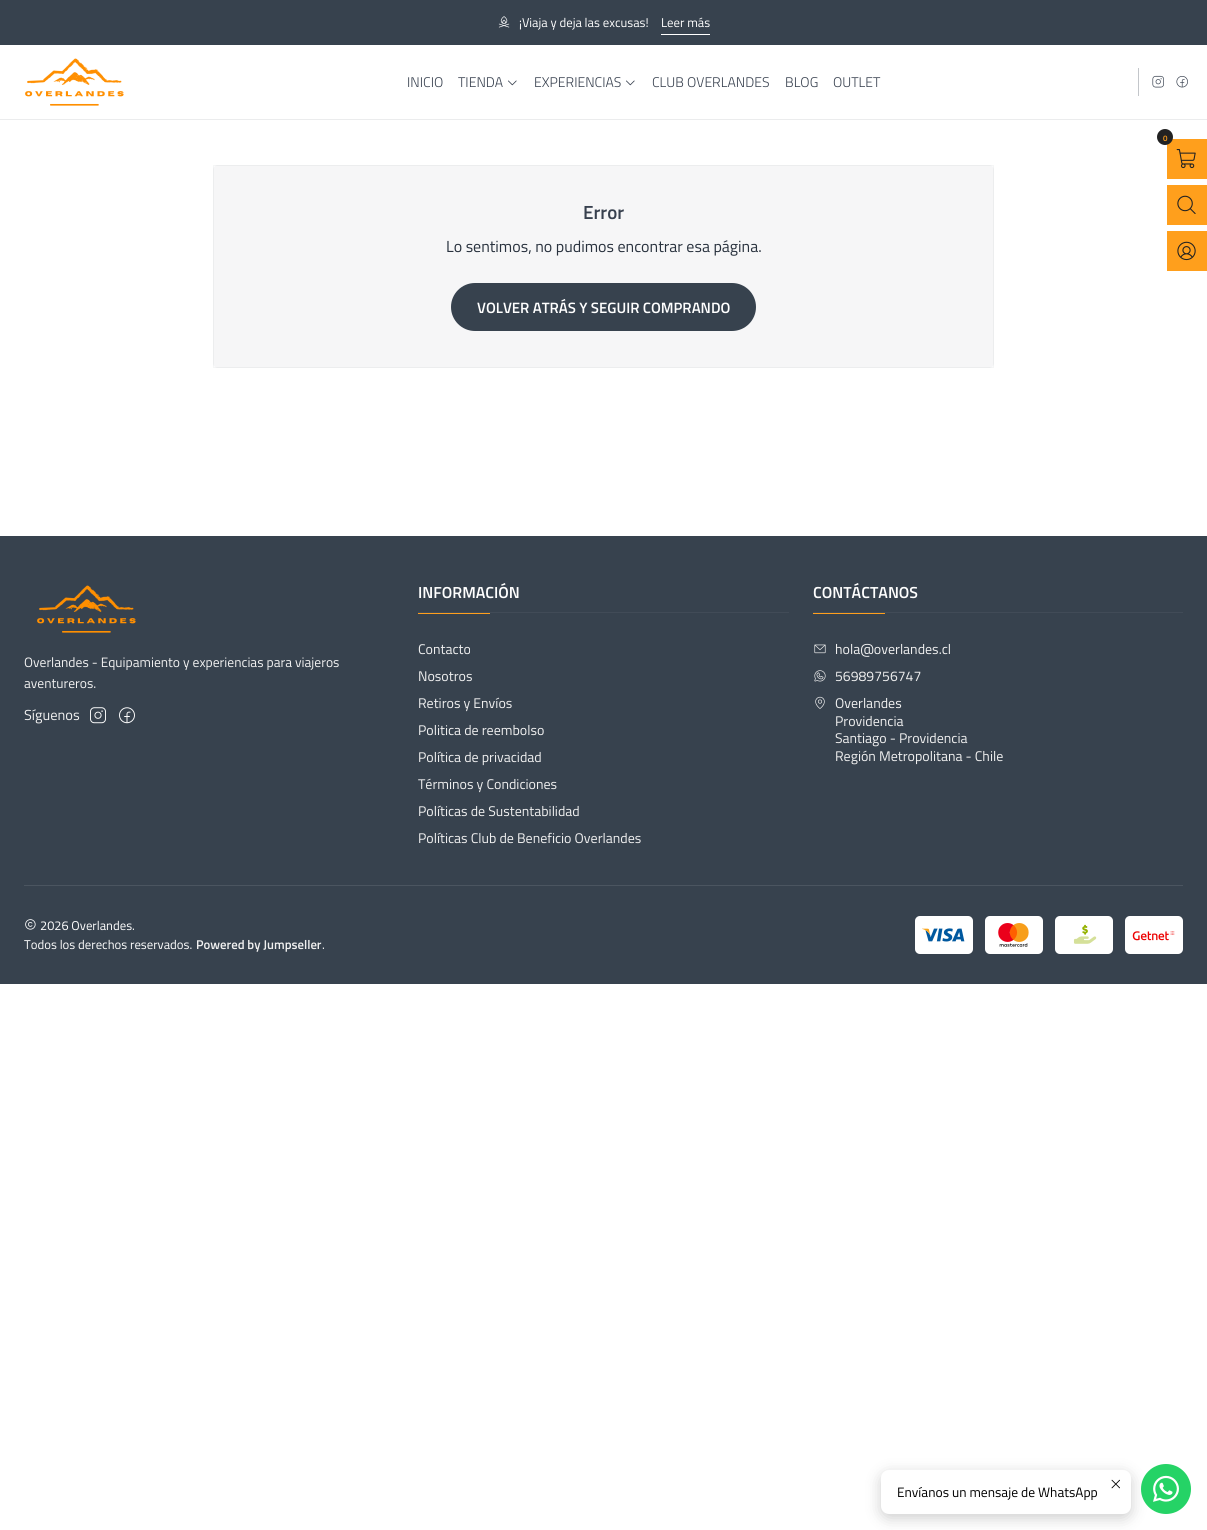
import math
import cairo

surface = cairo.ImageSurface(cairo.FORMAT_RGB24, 1207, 1530)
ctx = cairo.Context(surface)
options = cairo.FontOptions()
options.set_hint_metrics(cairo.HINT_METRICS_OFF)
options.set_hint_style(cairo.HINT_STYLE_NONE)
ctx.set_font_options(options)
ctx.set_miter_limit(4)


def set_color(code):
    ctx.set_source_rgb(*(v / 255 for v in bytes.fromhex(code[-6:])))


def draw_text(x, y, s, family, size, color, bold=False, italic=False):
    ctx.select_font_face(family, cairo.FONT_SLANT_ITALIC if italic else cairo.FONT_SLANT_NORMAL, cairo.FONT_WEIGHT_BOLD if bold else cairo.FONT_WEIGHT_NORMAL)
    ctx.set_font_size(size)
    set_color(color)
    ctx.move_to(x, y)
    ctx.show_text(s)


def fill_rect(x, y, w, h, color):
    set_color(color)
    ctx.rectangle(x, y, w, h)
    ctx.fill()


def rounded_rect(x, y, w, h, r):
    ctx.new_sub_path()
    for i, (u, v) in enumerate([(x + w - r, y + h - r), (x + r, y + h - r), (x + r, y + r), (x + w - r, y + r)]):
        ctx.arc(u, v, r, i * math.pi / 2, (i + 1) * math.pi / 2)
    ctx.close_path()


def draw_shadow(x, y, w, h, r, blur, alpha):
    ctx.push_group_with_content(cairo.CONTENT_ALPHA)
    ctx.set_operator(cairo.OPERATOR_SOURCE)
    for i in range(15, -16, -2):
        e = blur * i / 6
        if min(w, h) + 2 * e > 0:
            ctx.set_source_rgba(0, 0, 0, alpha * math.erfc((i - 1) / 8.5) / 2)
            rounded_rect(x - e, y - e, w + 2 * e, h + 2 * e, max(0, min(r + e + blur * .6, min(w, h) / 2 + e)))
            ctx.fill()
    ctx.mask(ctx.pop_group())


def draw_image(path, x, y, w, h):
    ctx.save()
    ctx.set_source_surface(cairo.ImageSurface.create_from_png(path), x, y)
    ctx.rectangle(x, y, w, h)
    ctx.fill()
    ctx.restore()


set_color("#ffffff")
ctx.paint()
fill_rect(0, 0, 1207, 45, "#37424e")
draw_image("assets/img1.png", 498, 16, 12, 12)
draw_text(519, 27, "¡Viaja y deja las excusas!", "Titillium Web", 12.75, "#ffffff")
fill_rect(661, 34, 49, 1, "#ffffff")
draw_text(661, 27, "Leer más", "Titillium Web", 12.75, "#ffffff")
fill_rect(0, 119, 1207, 1, "#ebeced")
draw_image("assets/img2.png", 25, 58, 99, 48)
draw_text(407, 87, "INICIO", "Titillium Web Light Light", 14, "#37404e")
draw_text(458, 87, "TIENDA", "Titillium Web Light Light", 14, "#37404e")
draw_image("assets/img3.png", 508, 80, 9, 6)
draw_text(534, 87, "EXPERIENCIAS", "Titillium Web Light Light", 14, "#37404e")
draw_image("assets/img3.png", 626, 80, 9, 6)
draw_text(652, 87, "CLUB OVERLANDES", "Titillium Web Light Light", 14, "#37404e")
draw_text(785, 87, "BLOG", "Titillium Web Light Light", 14, "#37404e")
draw_text(833, 87, "OUTLET", "Titillium Web Light Light", 14, "#37404e")
fill_rect(1138, 68, 1, 28, "#c3c6ca")
draw_image("assets/img4.png", 1152, 75, 12, 13)
draw_image("assets/img5.png", 1176, 76, 12, 12)
fill_rect(1167, 139, 40, 40, "#ff9f1c")
set_color("#222222")
ctx.arc(1165, 137, 8, 0, 2 * math.pi)
ctx.fill()
draw_text(1163, 141, "0", "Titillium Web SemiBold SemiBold", 8, "#ff9f1c")
draw_image("assets/img6.png", 1176, 149, 20, 20)
fill_rect(1167, 185, 40, 40, "#ff9f1c")
draw_image("assets/img7.png", 1177, 195, 19, 19)
fill_rect(1167, 231, 40, 40, "#ff9f1c")
draw_image("assets/img8.png", 1177, 241, 19, 20)
set_color("#f6f6f7")
rounded_rect(213, 165, 781, 203, 5)
ctx.fill()
ctx.rectangle(213.5, 165.5, 780, 202)
ctx.set_source_rgba(0.216, 0.251, 0.306, 0.05)
ctx.set_line_width(1)
ctx.stroke()
draw_text(583, 219, "Error", "Titillium Web SemiBold SemiBold", 19, "#37404e")
draw_text(446, 252, "Lo sentimos, no pudimos encontrar esa página.", "Titillium Web", 16, "#29323e")
set_color("#37424e")
rounded_rect(451, 283, 305, 48, 24)
ctx.fill()
draw_text(477, 313, "VOLVER ATRÁS Y SEGUIR COMPRANDO", "Titillium Web SemiBold SemiBold", 15, "#ffffff")
fill_rect(0, 536, 1207, 448, "#37424e")
draw_image("assets/img9.png", 37, 585, 99, 48)
draw_text(24, 667, "Overlandes - Equipamiento y experiencias para viajeros", "Titillium Web", 13.6, "#f0f0f0")
draw_text(24, 688, "aventureros.", "Titillium Web", 13.6, "#f0f0f0")
draw_text(24, 720, "Síguenos", "Titillium Web", 14.5, "#f0f0f0")
draw_image("assets/img10.png", 90, 707, 16, 17)
draw_image("assets/img11.png", 119, 707, 16, 17)
fill_rect(418, 612, 371, 1, "#414b57")
draw_text(418, 598, "INFORMACIÓN", "Titillium Web SemiBold SemiBold", 16, "#ffffff")
fill_rect(418, 613, 72, 1, "#ff9f1c")
draw_text(418, 654, "Contacto", "Titillium Web", 14, "#f0f0f0")
draw_text(418, 681, "Nosotros", "Titillium Web", 14, "#f0f0f0")
draw_text(418, 708, "Retiros y Envíos", "Titillium Web", 14, "#f0f0f0")
draw_text(418, 735, "Politica de reembolso", "Titillium Web", 14, "#f0f0f0")
draw_text(418, 762, "Política de privacidad", "Titillium Web", 14, "#f0f0f0")
draw_text(418, 789, "Términos y Condiciones", "Titillium Web", 14, "#f0f0f0")
draw_text(418, 816, "Políticas de Sustentabilidad", "Titillium Web", 14, "#f0f0f0")
draw_text(418, 843, "Políticas Club de Beneficio Overlandes", "Titillium Web", 14, "#f0f0f0")
fill_rect(813, 612, 370, 1, "#414b57")
draw_text(813, 598, "CONTÁCTANOS", "Titillium Web SemiBold SemiBold", 16, "#ffffff")
fill_rect(813, 613, 72, 1, "#ff9f1c")
draw_image("assets/img12.png", 814, 644, 12, 10)
draw_text(835, 654, "hola@overlandes.cl", "Titillium Web", 14, "#f0f0f0")
draw_image("assets/img13.png", 814, 670, 12, 12)
draw_text(835, 681, "56989756747", "Titillium Web", 14, "#f0f0f0")
draw_image("assets/img14.png", 815, 696, 10, 13)
draw_text(835, 708, "Overlandes", "Titillium Web", 14, "#f0f0f0")
draw_text(835, 726, "Providencia", "Titillium Web", 14, "#f0f0f0")
draw_text(835, 743, "Santiago - Providencia", "Titillium Web", 14, "#f0f0f0")
draw_text(835, 761, "Región Metropolitana - Chile", "Titillium Web", 14, "#f0f0f0")
fill_rect(24, 885, 1159, 1, "#4b5560")
draw_image("assets/img15.png", 25, 919, 11, 11)
draw_text(40, 930, "2026 Overlandes.", "Titillium Web", 12.75, "#ffffff")
draw_text(24, 949, "Todos los derechos reservados.", "Titillium Web", 12.75, "#ffffff")
draw_text(196, 949, "Powered by Jumpseller", "Titillium Web SemiBold SemiBold", 12.75, "#f0f0f0")
draw_text(322, 949, ".", "Titillium Web", 12.75, "#ffffff")
rounded_rect(915, 916, 58, 38, 5)
ctx.fill()
rounded_rect(915.5, 916.5, 57, 37, 4.5)
ctx.set_source_rgba(1, 1, 1, 0.1)
ctx.stroke()
draw_image("assets/img16.png", 922, 928, 43, 14)
set_color("#ffffff")
rounded_rect(985, 916, 58, 38, 5)
ctx.fill()
rounded_rect(985.5, 916.5, 57, 37, 4.5)
ctx.set_source_rgba(1, 1, 1, 0.1)
ctx.stroke()
draw_image("assets/img17.png", 998, 923, 31, 24)
set_color("#ffffff")
rounded_rect(1055, 916, 58, 38, 5)
ctx.fill()
rounded_rect(1055.5, 916.5, 57, 37, 4.5)
ctx.set_source_rgba(1, 1, 1, 0.1)
ctx.stroke()
draw_image("assets/img18.png", 1073, 924, 24, 20)
set_color("#ffffff")
rounded_rect(1125, 916, 58, 38, 5)
ctx.fill()
rounded_rect(1125.5, 916.5, 57, 37, 4.5)
ctx.set_source_rgba(1, 1, 1, 0.1)
ctx.stroke()
draw_image("assets/img19.png", 1132, 931, 43, 10)
set_color("#000000")
draw_shadow(881, 1474, 250, 44, 8, 7.5, 0.2)
set_color("#ffffff")
rounded_rect(881, 1470, 250, 44, 8)
ctx.fill()
draw_image("assets/img20.png", 1111, 1479, 9, 10)
draw_text(897, 1497, "Envíanos un mensaje de WhatsApp", "Titillium Web", 13.6, "#000000")
set_color("#25d366")
ctx.new_path()
ctx.arc(1166, 1489, 25, 0, 2 * math.pi)
ctx.fill()
draw_image("assets/img21.png", 1153, 1475, 26, 27)
surface.write_to_png("output.png")
